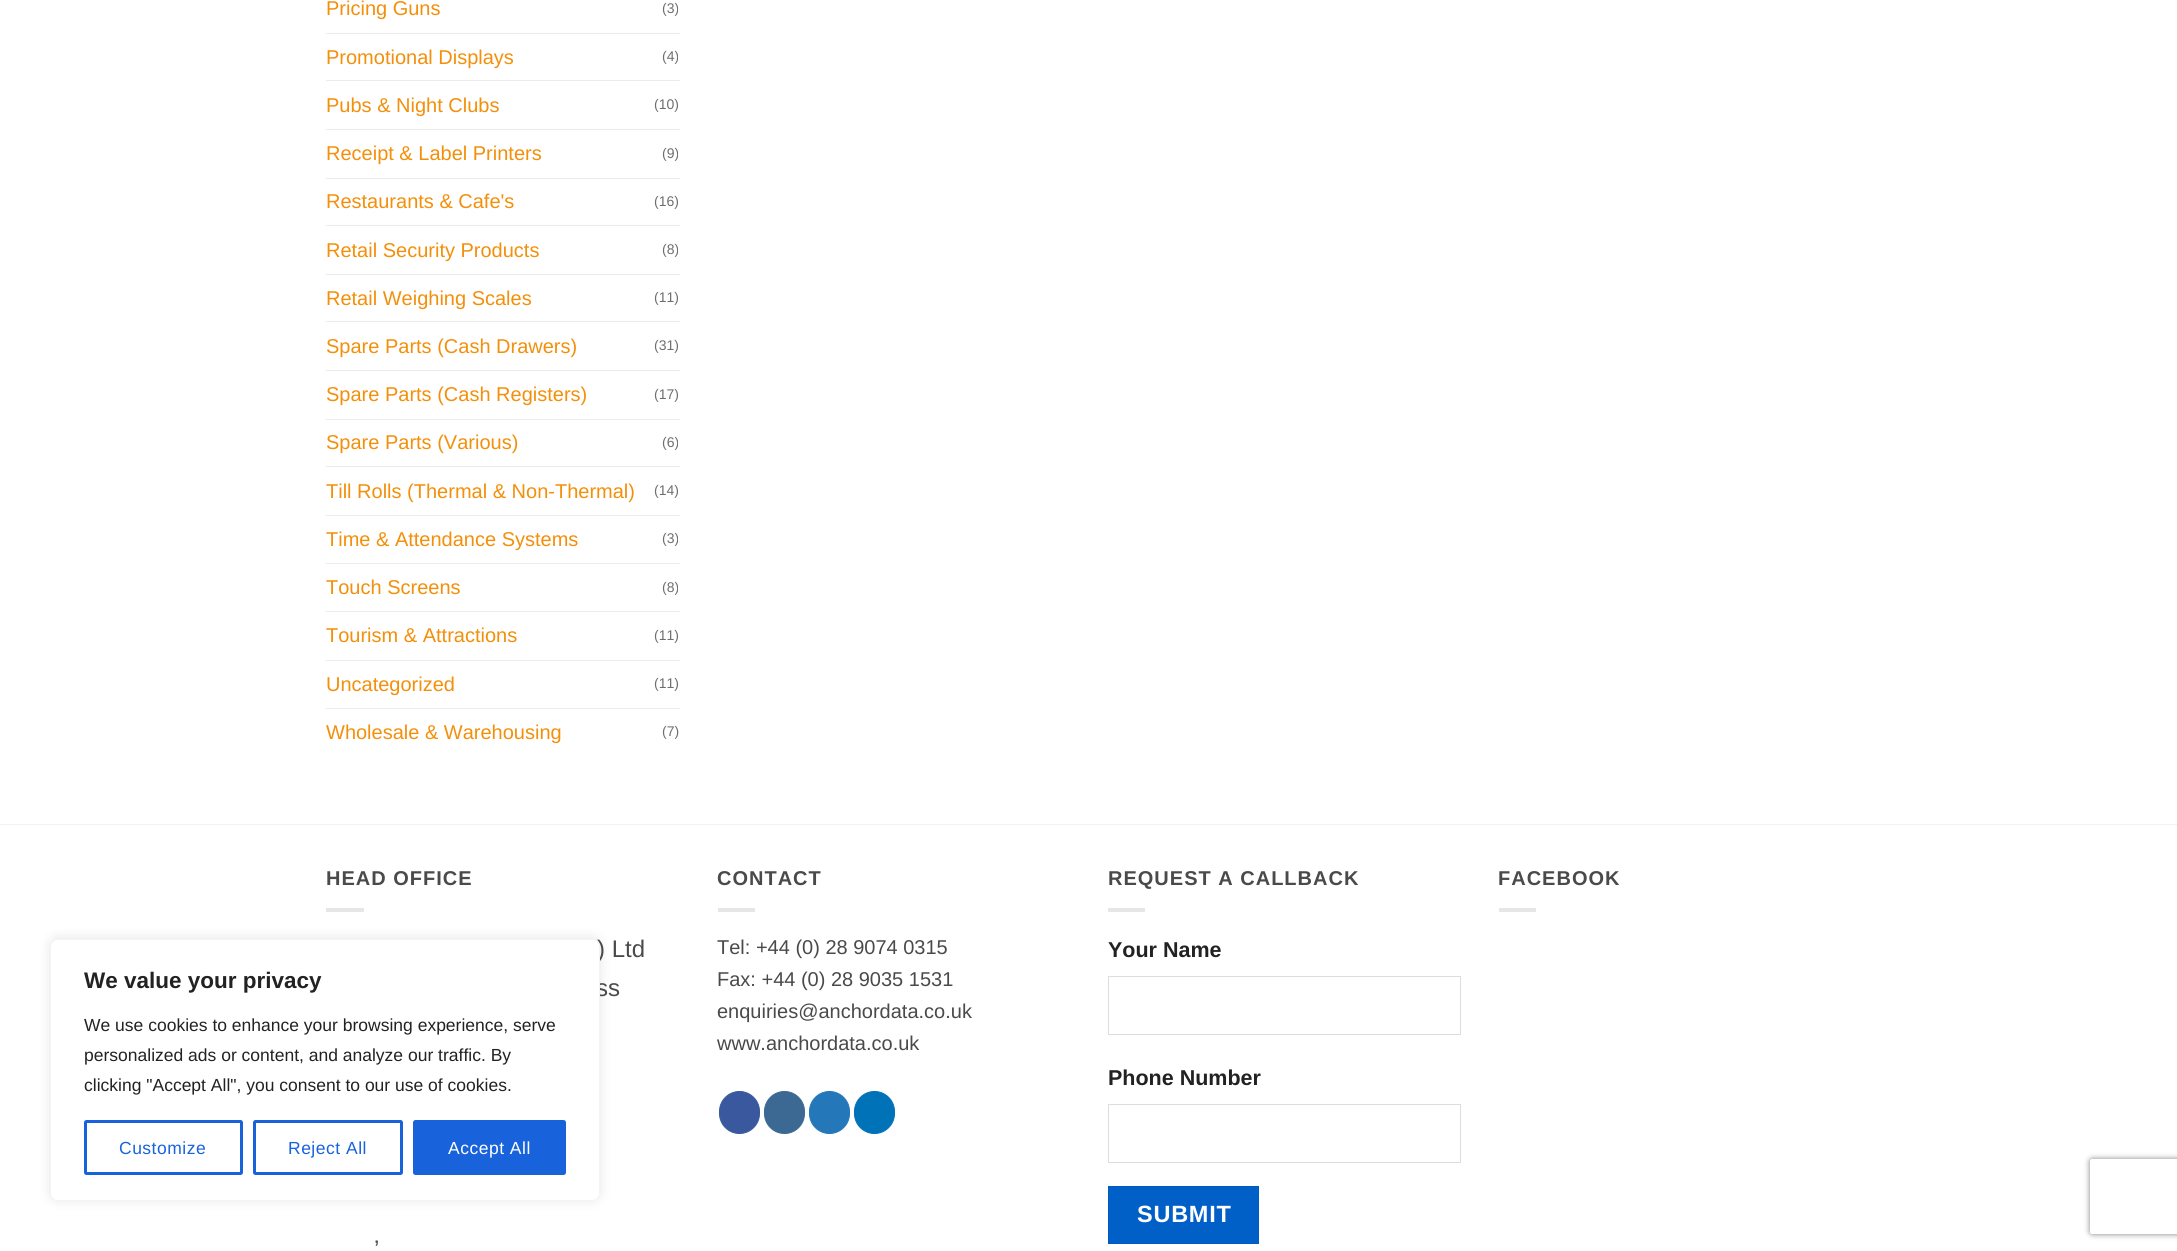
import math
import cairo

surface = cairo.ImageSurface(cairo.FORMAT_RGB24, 2177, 1251)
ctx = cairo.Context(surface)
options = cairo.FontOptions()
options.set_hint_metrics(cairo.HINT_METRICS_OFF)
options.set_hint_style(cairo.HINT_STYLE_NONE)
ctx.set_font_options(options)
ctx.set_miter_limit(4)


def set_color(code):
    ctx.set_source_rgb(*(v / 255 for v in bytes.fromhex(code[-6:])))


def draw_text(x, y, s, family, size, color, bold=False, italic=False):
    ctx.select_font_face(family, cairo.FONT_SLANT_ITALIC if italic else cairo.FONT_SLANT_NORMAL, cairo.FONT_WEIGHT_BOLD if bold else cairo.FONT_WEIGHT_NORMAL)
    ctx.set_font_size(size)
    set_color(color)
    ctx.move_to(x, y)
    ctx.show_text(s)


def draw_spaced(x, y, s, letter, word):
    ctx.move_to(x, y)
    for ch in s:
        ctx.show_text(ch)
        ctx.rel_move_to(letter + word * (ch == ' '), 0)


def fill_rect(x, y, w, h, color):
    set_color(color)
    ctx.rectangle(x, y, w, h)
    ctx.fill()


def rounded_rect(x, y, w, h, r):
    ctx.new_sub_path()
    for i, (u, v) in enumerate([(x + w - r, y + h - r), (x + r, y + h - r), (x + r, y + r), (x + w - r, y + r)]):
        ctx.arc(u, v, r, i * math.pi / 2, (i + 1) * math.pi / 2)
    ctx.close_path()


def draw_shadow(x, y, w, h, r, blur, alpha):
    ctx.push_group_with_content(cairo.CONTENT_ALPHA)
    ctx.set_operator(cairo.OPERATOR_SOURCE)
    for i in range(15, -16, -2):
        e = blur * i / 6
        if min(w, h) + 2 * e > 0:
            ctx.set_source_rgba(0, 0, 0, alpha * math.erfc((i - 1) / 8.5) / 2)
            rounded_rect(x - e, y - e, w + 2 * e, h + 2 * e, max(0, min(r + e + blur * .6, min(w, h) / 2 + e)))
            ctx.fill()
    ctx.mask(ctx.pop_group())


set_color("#ffffff")
ctx.paint()
set_color("#acabab")
draw_shadow(50, 938, 550, 262, 8, 6, 0.3)
draw_text(597, 957, ") Ltd", "Liberation Sans", 24, "#4a4a4a")
draw_text(596, 996, "ss", "Liberation Sans", 24, "#4a4a4a")
set_color("#ffffff")
rounded_rect(50.5, 939.5, 549, 261, 7.5)
ctx.fill_preserve()
set_color("#f4f4f4")
ctx.set_line_width(1)
ctx.stroke()
draw_text(84, 988, "We value your privacy", "Liberation Sans", 22.5, "#222222", bold=True)
draw_text(84, 1031, "We use cookies to enhance your browsing experience, serve", "Liberation Sans", 17.5, "#222222")
draw_text(84, 1061, "personalized ads or content, and analyze our traffic. By", "Liberation Sans", 17.5, "#222222")
draw_text(84, 1091, "clicking \"Accept All\", you consent to our use of cookies.", "Liberation Sans", 17.5, "#222222")
rounded_rect(85.5, 1121.5, 156, 52, 1)
set_color("#1863dc")
ctx.set_line_width(3)
ctx.stroke()
draw_spaced(119, 1154, "Customize", 0.5, 0)
rounded_rect(254.5, 1121.5, 147, 52, 1)
ctx.stroke()
draw_spaced(288, 1154, "Reject All", 0.5, 0)
rounded_rect(414.5, 1121.5, 150, 52, 1)
ctx.fill_preserve()
ctx.stroke()
set_color("#ffffff")
draw_spaced(448, 1154, "Accept All", 0.5, 0)
draw_text(326, 15, "Pricing Guns", "Liberation Sans", 20, "#f38f09")
draw_text(662, 13, "(3)", "Liberation Sans", 14, "#6e6e6e")
fill_rect(326, 33, 354, 1, "#ececec")
draw_text(326, 64, "Promotional Displays", "Liberation Sans", 20, "#f38f09")
draw_text(662, 61, "(4)", "Liberation Sans", 14, "#6e6e6e")
fill_rect(326, 80, 354, 1, "#ececec")
draw_text(326, 112, "Pubs & Night Clubs", "Liberation Sans", 20, "#f38f09")
draw_text(654, 109, "(10)", "Liberation Sans", 14, "#6e6e6e")
fill_rect(326, 129, 354, 1, "#ececec")
draw_text(326, 160, "Receipt & Label Printers", "Liberation Sans", 20, "#f38f09")
draw_text(662, 158, "(9)", "Liberation Sans", 14, "#6e6e6e")
fill_rect(326, 178, 354, 1, "#ececec")
draw_text(326, 208, "Restaurants & Cafe's", "Liberation Sans", 20, "#f38f09")
draw_text(654, 206, "(16)", "Liberation Sans", 14, "#6e6e6e")
fill_rect(326, 225, 354, 1, "#ececec")
draw_text(326, 257, "Retail Security Products", "Liberation Sans", 20, "#f38f09")
draw_text(662, 254, "(8)", "Liberation Sans", 14, "#6e6e6e")
fill_rect(326, 274, 354, 1, "#ececec")
draw_text(326, 305, "Retail Weighing Scales", "Liberation Sans", 20, "#f38f09")
draw_text(654, 302, "(11)", "Liberation Sans", 14, "#6e6e6e")
fill_rect(326, 321, 354, 1, "#ececec")
draw_text(326, 353, "Spare Parts (Cash Drawers)", "Liberation Sans", 20, "#f38f09")
draw_text(654, 350, "(31)", "Liberation Sans", 14, "#6e6e6e")
fill_rect(326, 370, 354, 1, "#ececec")
draw_text(326, 401, "Spare Parts (Cash Registers)", "Liberation Sans", 20, "#f38f09")
draw_text(654, 399, "(17)", "Liberation Sans", 14, "#6e6e6e")
fill_rect(326, 419, 354, 1, "#ececec")
draw_text(326, 449, "Spare Parts (Various)", "Liberation Sans", 20, "#f38f09")
draw_text(662, 447, "(6)", "Liberation Sans", 14, "#6e6e6e")
fill_rect(326, 466, 354, 1, "#ececec")
draw_text(326, 498, "Till Rolls (Thermal & Non-Thermal)", "Liberation Sans", 20, "#f38f09")
draw_text(654, 495, "(14)", "Liberation Sans", 14, "#6e6e6e")
fill_rect(326, 515, 354, 1, "#ececec")
draw_text(326, 546, "Time & Attendance Systems", "Liberation Sans", 20, "#f38f09")
draw_text(662, 543, "(3)", "Liberation Sans", 14, "#6e6e6e")
fill_rect(326, 563, 354, 1, "#ececec")
draw_text(326, 594, "Touch Screens", "Liberation Sans", 20, "#f38f09")
draw_text(662, 592, "(8)", "Liberation Sans", 14, "#6e6e6e")
fill_rect(326, 611, 354, 1, "#ececec")
draw_text(326, 642, "Tourism & Attractions", "Liberation Sans", 20, "#f38f09")
draw_text(654, 640, "(11)", "Liberation Sans", 14, "#6e6e6e")
fill_rect(326, 660, 354, 1, "#ececec")
draw_text(326, 691, "Uncategorized", "Liberation Sans", 20, "#f38f09")
draw_text(654, 688, "(11)", "Liberation Sans", 14, "#6e6e6e")
fill_rect(326, 708, 354, 1, "#ececec")
draw_text(326, 739, "Wholesale & Warehousing", "Liberation Sans", 20, "#f38f09")
draw_text(662, 736, "(7)", "Liberation Sans", 14, "#6e6e6e")
fill_rect(0, 824, 2177, 1, "#f2f2f2")
ctx.select_font_face("Liberation Sans", cairo.FONT_SLANT_NORMAL, cairo.FONT_WEIGHT_BOLD)
ctx.set_font_size(20)
set_color("#4a4a4a")
draw_spaced(326, 885, "HEAD OFFICE", 1, 0)
fill_rect(326, 908, 38, 4, "#e6e6e6")
draw_text(374, 1257, "’", "Liberation Sans", 24, "#4a4a4a")
ctx.select_font_face("Liberation Sans", cairo.FONT_SLANT_NORMAL, cairo.FONT_WEIGHT_BOLD)
ctx.set_font_size(20)
draw_spaced(717, 885, "CONTACT", 1, 0)
fill_rect(718, 908, 37, 4, "#e6e6e6")
draw_text(717, 954, "Tel: +44 (0) 28 9074 0315", "Liberation Sans", 20, "#4a4a4a")
draw_text(717, 986, "Fax: +44 (0) 28 9035 1531", "Liberation Sans", 20, "#4a4a4a")
draw_text(717, 1018, "enquiries@anchordata.co.uk", "Liberation Sans", 20, "#4a4a4a")
draw_text(717, 1050, "www.anchordata.co.uk", "Liberation Sans", 20, "#4a4a4a")
set_color("#3a589d")
rounded_rect(719.5, 1091.5, 40, 42, 20)
ctx.fill_preserve()
ctx.set_line_width(1)
ctx.stroke()
set_color("#3b6994")
rounded_rect(764.5, 1091.5, 40, 42, 20)
ctx.fill_preserve()
ctx.stroke()
set_color("#2478ba")
rounded_rect(809.5, 1091.5, 40, 42, 20)
ctx.fill_preserve()
ctx.stroke()
set_color("#0072b7")
rounded_rect(854.5, 1091.5, 40, 42, 20)
ctx.fill_preserve()
ctx.stroke()
ctx.select_font_face("Liberation Sans", cairo.FONT_SLANT_NORMAL, cairo.FONT_WEIGHT_BOLD)
set_color("#4a4a4a")
draw_spaced(1108, 885, "REQUEST A CALLBACK", 1, 0)
fill_rect(1108, 908, 37, 4, "#e6e6e6")
draw_text(1108, 957, "Your Name", "Liberation Sans", 21.5, "#222222", bold=True)
ctx.rectangle(1108.5, 976.5, 352, 58)
set_color("#dddddd")
ctx.stroke()
draw_text(1108, 1085, "Phone Number", "Liberation Sans", 21.5, "#222222", bold=True)
ctx.rectangle(1108.5, 1104.5, 352, 58)
set_color("#dddddd")
ctx.stroke()
set_color("#0060c8")
ctx.rectangle(1108.5, 1186.5, 150, 57)
ctx.fill_preserve()
set_color("#005bbe")
ctx.stroke()
ctx.set_font_size(23.5)
set_color("#ffffff")
draw_spaced(1137, 1222, "SUBMIT", 0.75, 0)
ctx.set_font_size(20)
set_color("#4a4a4a")
draw_spaced(1498, 885, "FACEBOOK", 1, 0)
fill_rect(1499, 908, 37, 4, "#e6e6e6")
ctx.save()
ctx.set_fill_rule(cairo.FILL_RULE_EVEN_ODD)
ctx.new_path()
ctx.move_to(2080, 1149)
ctx.line_to(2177, 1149)
ctx.line_to(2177, 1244)
ctx.line_to(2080, 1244)
ctx.close_path()
ctx.move_to(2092.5, 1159)
ctx.line_to(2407.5, 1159)
ctx.curve_to(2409, 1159, 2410, 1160, 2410, 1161.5)
ctx.line_to(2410, 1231.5)
ctx.curve_to(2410, 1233, 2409, 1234, 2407.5, 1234)
ctx.line_to(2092.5, 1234)
ctx.curve_to(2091, 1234, 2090, 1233, 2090, 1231.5)
ctx.line_to(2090, 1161.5)
ctx.curve_to(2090, 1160, 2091, 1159, 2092.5, 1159)
ctx.close_path()
ctx.clip()
set_color("#808080")
draw_shadow(2090, 1159, 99, 75, 2.5, 3, 1)
ctx.restore()
surface.write_to_png("output.png")
